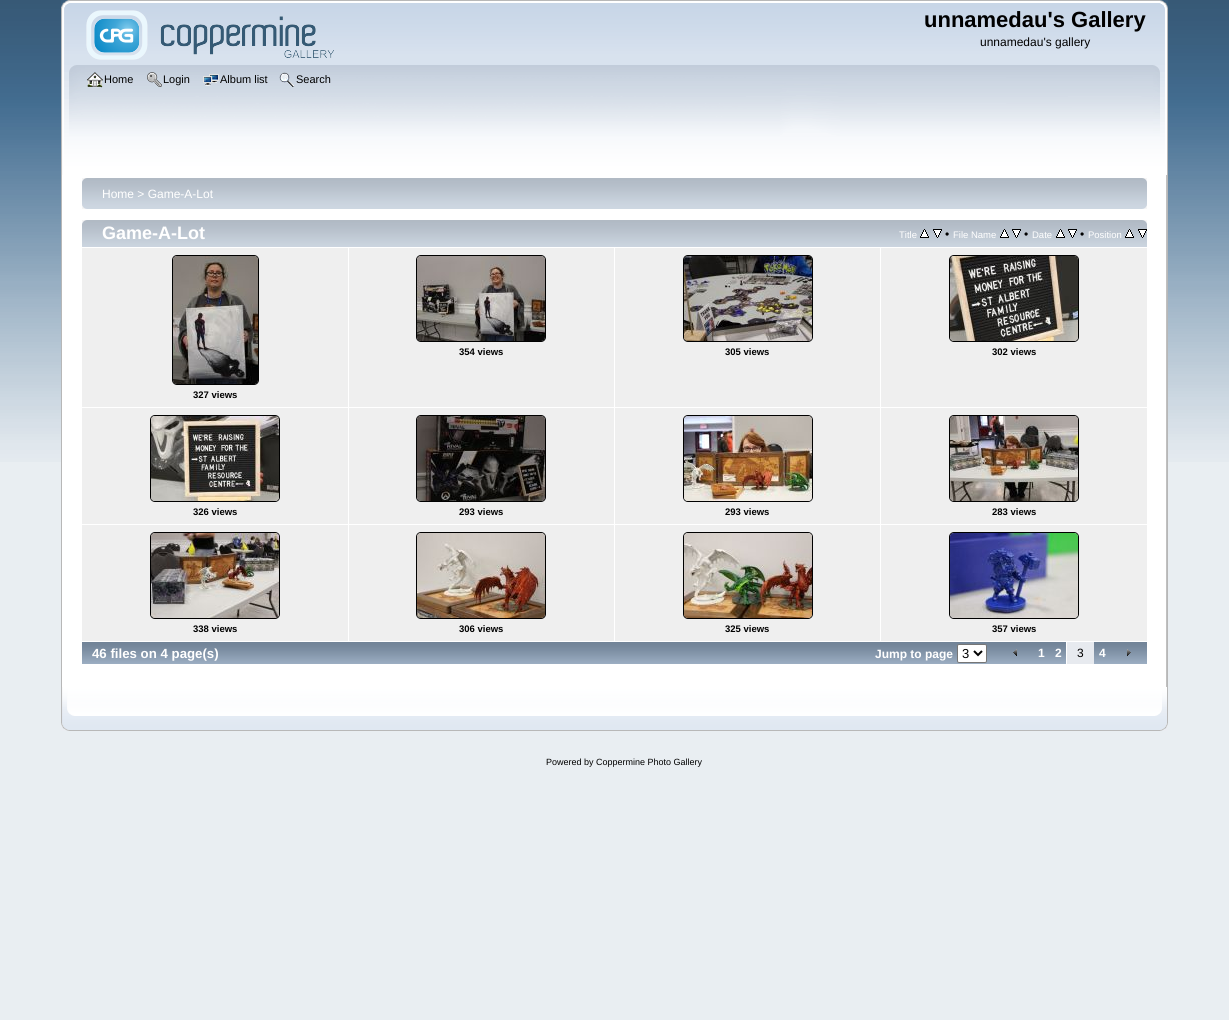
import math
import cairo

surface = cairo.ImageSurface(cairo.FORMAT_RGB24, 1229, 1020)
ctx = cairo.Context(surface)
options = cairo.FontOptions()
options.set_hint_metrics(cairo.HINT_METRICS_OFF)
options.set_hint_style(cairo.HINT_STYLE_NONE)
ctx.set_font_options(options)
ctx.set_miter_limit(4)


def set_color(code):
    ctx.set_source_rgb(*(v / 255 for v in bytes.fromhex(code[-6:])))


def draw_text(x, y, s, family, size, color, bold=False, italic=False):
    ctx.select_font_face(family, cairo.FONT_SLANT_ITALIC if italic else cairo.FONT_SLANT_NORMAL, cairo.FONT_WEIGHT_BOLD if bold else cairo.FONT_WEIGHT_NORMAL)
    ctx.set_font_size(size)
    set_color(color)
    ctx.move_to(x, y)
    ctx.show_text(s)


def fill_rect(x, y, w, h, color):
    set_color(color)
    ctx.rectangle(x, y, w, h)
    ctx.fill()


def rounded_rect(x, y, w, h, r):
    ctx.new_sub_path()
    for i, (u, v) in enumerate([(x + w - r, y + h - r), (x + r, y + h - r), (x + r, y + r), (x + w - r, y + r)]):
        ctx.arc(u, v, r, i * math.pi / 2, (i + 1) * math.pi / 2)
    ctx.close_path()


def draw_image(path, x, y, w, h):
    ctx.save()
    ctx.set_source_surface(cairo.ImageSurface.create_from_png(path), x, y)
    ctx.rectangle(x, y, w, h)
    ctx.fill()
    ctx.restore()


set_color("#e9eef2")
ctx.paint()
draw_image("assets/img1.png", 0, 0, 1229, 462)
draw_image("assets/img2.png", 61, 0, 1099, 65)
draw_image("assets/img3.png", 1160, 0, 8, 65)
draw_image("assets/img4.png", 86, 10, 248, 50)
draw_text(924, 27, "unnamedau's Gallery", "Liberation Sans", 22, "#000000", bold=True)
draw_text(980, 46, "unnamedau's gallery", "Liberation Sans", 12, "#000000")
draw_image("assets/img5.png", 61, 65, 1092, 110)
draw_image("assets/img6.png", 1153, 65, 15, 110)
draw_image("assets/img7.png", 87, 72, 16, 16)
draw_text(104, 83, "Home", "Liberation Sans", 11, "#000000")
draw_image("assets/img8.png", 147, 72, 15, 15)
draw_text(163, 83, "Login", "Liberation Sans", 11, "#000000")
draw_image("assets/img9.png", 203, 74, 16, 12)
draw_text(220, 83, "Album list", "Liberation Sans", 11, "#000000")
draw_image("assets/img10.png", 279, 72, 16, 15)
draw_text(296, 83, "Search", "Liberation Sans", 11, "#000000")
fill_rect(62, 175, 1104, 512, "#ffffff")
fill_rect(61, 175, 1, 512, "#b7b7b7")
draw_image("assets/img11.png", 1166, 175, 2, 512)
draw_image("assets/img12.png", 82, 178, 1060, 31)
draw_image("assets/img13.png", 1142, 178, 5, 31)
draw_text(102, 198, "Home > Game-A-Lot", "Liberation Sans", 12, "#ffffff")
draw_image("assets/img14.png", 82, 220, 1065, 27)
draw_image("assets/img15.png", 1142, 220, 5, 4)
draw_text(102, 239, "Game-A-Lot", "Liberation Sans", 18, "#ffffff", bold=True)
draw_text(899, 238, "Title", "Liberation Sans", 9.5, "#ffffff")
draw_image("assets/img16.png", 920, 229, 9, 9)
draw_image("assets/img17.png", 933, 229, 9, 9)
draw_text(945, 238, "•", "Liberation Sans", 12, "#000000")
draw_text(953, 238, "File Name", "Liberation Sans", 9.5, "#ffffff")
draw_image("assets/img16.png", 1000, 229, 9, 9)
draw_image("assets/img17.png", 1012, 229, 9, 9)
draw_text(1024, 238, "•", "Liberation Sans", 12, "#000000")
draw_text(1032, 238, "Date", "Liberation Sans", 9.5, "#ffffff")
draw_image("assets/img16.png", 1056, 229, 9, 9)
draw_image("assets/img17.png", 1068, 229, 9, 9)
draw_text(1080, 238, "•", "Liberation Sans", 12, "#000000")
draw_text(1088, 238, "Position", "Liberation Sans", 9.5, "#ffffff")
draw_image("assets/img16.png", 1125, 229, 9, 9)
draw_image("assets/img17.png", 1138, 229, 9, 9)
fill_rect(349, 248, 265, 159, "#efefef")
rounded_rect(416.5, 255.5, 129, 86, 4.5)
set_color("#000000")
ctx.set_line_width(1)
ctx.stroke()
draw_image("assets/img18.png", 417, 256, 128, 85)
draw_text(459, 355, "354 views", "Liberation Sans", 9.5, "#000000", bold=True)
fill_rect(615, 248, 265, 159, "#efefef")
rounded_rect(683.5, 255.5, 129, 86, 4.5)
set_color("#000000")
ctx.stroke()
draw_image("assets/img19.png", 684, 256, 128, 85)
draw_text(725, 355, "305 views", "Liberation Sans", 9.5, "#000000", bold=True)
fill_rect(881, 248, 266, 159, "#efefef")
rounded_rect(949.5, 255.5, 129, 86, 4.5)
set_color("#000000")
ctx.stroke()
draw_image("assets/img20.png", 950, 256, 128, 85)
draw_text(992, 355, "302 views", "Liberation Sans", 9.5, "#000000", bold=True)
fill_rect(82, 248, 266, 159, "#efefef")
rounded_rect(172.5, 255.5, 86, 129, 4.5)
set_color("#000000")
ctx.stroke()
draw_image("assets/img21.png", 173, 256, 85, 128)
draw_text(193, 398, "327 views", "Liberation Sans", 9.5, "#000000", bold=True)
fill_rect(82, 408, 266, 116, "#efefef")
rounded_rect(150.5, 415.5, 129, 86, 4.5)
set_color("#000000")
ctx.stroke()
draw_image("assets/img22.png", 151, 416, 128, 85)
draw_text(193, 515, "326 views", "Liberation Sans", 9.5, "#000000", bold=True)
fill_rect(349, 408, 265, 116, "#efefef")
rounded_rect(416.5, 415.5, 129, 86, 4.5)
set_color("#000000")
ctx.stroke()
draw_image("assets/img23.png", 417, 416, 128, 85)
draw_text(459, 515, "293 views", "Liberation Sans", 9.5, "#000000", bold=True)
fill_rect(615, 408, 265, 116, "#efefef")
rounded_rect(683.5, 415.5, 129, 86, 4.5)
set_color("#000000")
ctx.stroke()
draw_image("assets/img24.png", 684, 416, 128, 85)
draw_text(725, 515, "293 views", "Liberation Sans", 9.5, "#000000", bold=True)
fill_rect(881, 408, 266, 116, "#efefef")
rounded_rect(949.5, 415.5, 129, 86, 4.5)
set_color("#000000")
ctx.stroke()
draw_image("assets/img25.png", 950, 416, 128, 85)
draw_text(992, 515, "283 views", "Liberation Sans", 9.5, "#000000", bold=True)
fill_rect(82, 525, 266, 116, "#efefef")
rounded_rect(150.5, 532.5, 129, 86, 4.5)
set_color("#000000")
ctx.stroke()
draw_image("assets/img26.png", 151, 533, 128, 85)
draw_text(193, 632, "338 views", "Liberation Sans", 9.5, "#000000", bold=True)
fill_rect(349, 525, 265, 116, "#efefef")
rounded_rect(416.5, 532.5, 129, 86, 4.5)
set_color("#000000")
ctx.stroke()
draw_image("assets/img27.png", 417, 533, 128, 85)
draw_text(459, 632, "306 views", "Liberation Sans", 9.5, "#000000", bold=True)
fill_rect(615, 525, 265, 116, "#efefef")
rounded_rect(683.5, 532.5, 129, 86, 4.5)
set_color("#000000")
ctx.stroke()
draw_image("assets/img28.png", 684, 533, 128, 85)
draw_text(725, 632, "325 views", "Liberation Sans", 9.5, "#000000", bold=True)
fill_rect(881, 525, 266, 116, "#efefef")
rounded_rect(949.5, 532.5, 129, 86, 4.5)
set_color("#000000")
ctx.stroke()
draw_image("assets/img29.png", 950, 533, 128, 85)
draw_text(992, 632, "357 views", "Liberation Sans", 9.5, "#000000", bold=True)
draw_image("assets/img30.png", 82, 642, 793, 22)
draw_text(92, 658, "46 files on 4 page(s)", "Liberation Sans", 13.25, "#ffffff", bold=True)
draw_image("assets/img31.png", 875, 642, 122, 22)
draw_text(875, 658, "Jump to page", "Liberation Sans", 12, "#ffffff", bold=True)
rounded_rect(957.5, 644.5, 29, 18, 1.5)
ctx.fill_preserve()
set_color("#767676")
ctx.stroke()
ctx.new_path()
ctx.move_to(974, 651)
ctx.line_to(978, 655)
ctx.line_to(982, 651)
set_color("#000000")
ctx.set_line_width(2)
ctx.stroke()
draw_text(962, 658, "3", "Liberation Sans", 13, "#000000")
draw_image("assets/img32.png", 997, 642, 36, 22)
draw_image("assets/img33.png", 1013, 649, 4, 7)
draw_image("assets/img34.png", 1033, 642, 17, 22)
draw_text(1038, 657, "1", "Liberation Sans", 12, "#ffffff", bold=True)
draw_image("assets/img35.png", 1050, 642, 16, 22)
draw_text(1055, 657, "2", "Liberation Sans", 12, "#ffffff", bold=True)
fill_rect(1067, 642, 27, 22, "#e7eaef")
draw_text(1077, 657, "3", "Liberation Sans", 12, "#000000")
draw_image("assets/img34.png", 1094, 642, 17, 22)
draw_text(1099, 657, "4", "Liberation Sans", 12, "#ffffff", bold=True)
draw_image("assets/img32.png", 1111, 642, 36, 22)
draw_image("assets/img36.png", 1127, 649, 4, 7)
draw_image("assets/img37.png", 61, 687, 1094, 44)
draw_image("assets/img38.png", 1155, 687, 13, 44)
draw_text(546, 765, "Powered by Coppermine Photo Gallery", "Liberation Sans", 9, "#000000")
surface.write_to_png("output.png")
